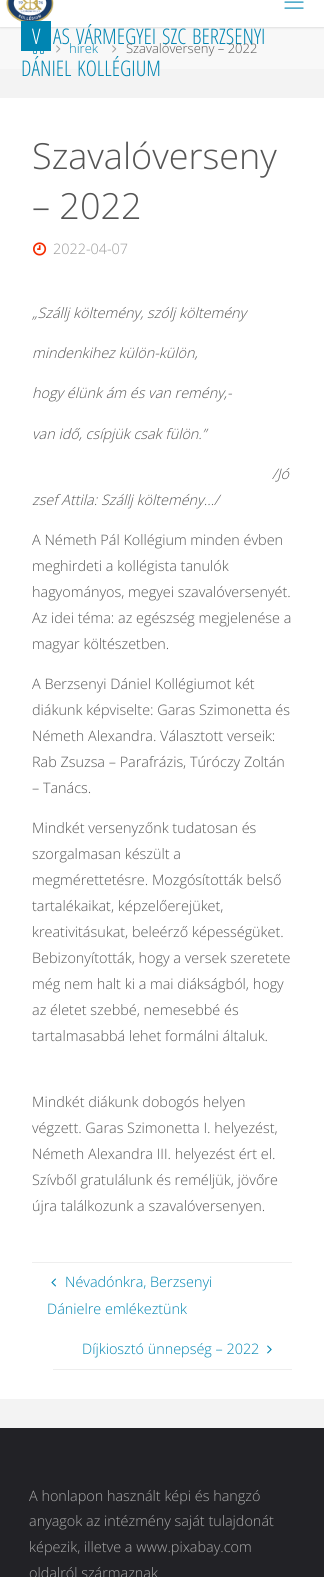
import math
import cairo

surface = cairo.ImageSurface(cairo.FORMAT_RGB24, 324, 1577)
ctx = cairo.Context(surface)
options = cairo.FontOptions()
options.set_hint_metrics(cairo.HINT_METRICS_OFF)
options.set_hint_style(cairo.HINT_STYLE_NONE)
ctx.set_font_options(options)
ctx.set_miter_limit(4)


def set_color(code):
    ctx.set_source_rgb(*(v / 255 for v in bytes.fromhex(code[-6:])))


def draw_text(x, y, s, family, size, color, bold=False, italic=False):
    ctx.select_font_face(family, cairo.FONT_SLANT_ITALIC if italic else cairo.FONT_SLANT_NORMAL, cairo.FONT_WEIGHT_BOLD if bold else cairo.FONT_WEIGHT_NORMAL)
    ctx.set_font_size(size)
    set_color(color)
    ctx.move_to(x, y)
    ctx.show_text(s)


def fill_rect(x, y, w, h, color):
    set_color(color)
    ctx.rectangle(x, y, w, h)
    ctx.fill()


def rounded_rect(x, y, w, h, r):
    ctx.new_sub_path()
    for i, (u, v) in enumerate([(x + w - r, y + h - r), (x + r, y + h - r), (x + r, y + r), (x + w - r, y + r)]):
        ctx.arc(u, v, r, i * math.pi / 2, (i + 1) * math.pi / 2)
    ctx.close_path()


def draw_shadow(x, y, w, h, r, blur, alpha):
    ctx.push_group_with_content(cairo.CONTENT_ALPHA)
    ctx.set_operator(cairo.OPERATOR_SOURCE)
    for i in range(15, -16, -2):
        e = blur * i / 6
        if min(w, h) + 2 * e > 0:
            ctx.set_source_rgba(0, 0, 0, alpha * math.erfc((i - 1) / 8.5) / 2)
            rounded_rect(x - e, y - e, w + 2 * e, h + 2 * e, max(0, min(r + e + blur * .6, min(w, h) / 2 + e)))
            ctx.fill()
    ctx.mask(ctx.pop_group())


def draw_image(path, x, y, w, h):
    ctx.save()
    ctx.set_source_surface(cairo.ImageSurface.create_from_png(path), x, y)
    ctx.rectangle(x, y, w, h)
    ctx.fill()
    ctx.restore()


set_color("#f3f3f3")
ctx.paint()
fill_rect(0, 27, 324, 42, "#f8f8f8")
set_color("#000000")
draw_shadow(0, -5, 324, 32, 0, 1.5, 0.2)
fill_rect(0, 0, 324, 27, "#ffffff")
draw_image("assets/img1.png", 284, 1, 20, 8)
draw_image("assets/img2.png", 6, 0, 48, 22)
fill_rect(21, 21, 30, 30, "#0085b2")
draw_text(32, 44, "V", "Open Sans Condensed Light", 21.5, "#ffffff")
draw_text(53, 44, "AS", "Open Sans Condensed Light", 21.5, "#0085b2")
draw_text(76, 44, "VÁRMEGYEI", "Open Sans Condensed Light", 21.5, "#0085b2")
draw_text(162, 44, "SZC", "Open Sans Condensed Light", 21.5, "#0085b2")
draw_text(192, 44, "BERZSENYI", "Open Sans Condensed Light", 21.5, "#0085b2")
draw_text(21, 76, "DÁNIEL", "Open Sans Condensed Light", 21.5, "#0085b2")
draw_text(77, 76, "KOLLÉGIUM", "Open Sans Condensed Light", 21.5, "#0085b2")
draw_image("assets/img3.png", 33, 51, 11, 3)
draw_image("assets/img4.png", 56, 45, 5, 8)
draw_text(69, 53, "hírek", "Open Sans Light", 13, "#0085b2")
draw_image("assets/img4.png", 112, 45, 5, 8)
draw_text(126, 53, "Szavalóverseny – 2022", "Open Sans Light", 13, "#555555")
fill_rect(0, 98, 324, 1301, "#ffffff")
draw_text(32, 169, "Szavalóverseny", "Open Sans Light", 36, "#555555")
draw_text(32, 219, "– 2022", "Open Sans Light", 36, "#555555")
draw_image("assets/img5.png", 33, 242, 14, 14)
draw_text(53, 254, "2022-04-07", "Open Sans Light", 14.4, "#9a9a9a")
draw_text(32, 318, "„Szállj költemény, szólj költemény", "Open Sans Light", 14.4, "#555555", italic=True)
draw_text(32, 358, "mindenkihez külön-külön,", "Open Sans Light", 14.4, "#555555", italic=True)
draw_text(32, 398, "hogy élünk ám és van remény,-", "Open Sans Light", 14.4, "#555555", italic=True)
draw_text(32, 439, "van idő, csípjük csak fülön.”", "Open Sans Light", 14.4, "#555555", italic=True)
draw_text(272, 479, "/Jó", "Open Sans Light", 14.4, "#555555", italic=True)
draw_text(32, 505, "zsef Attila: Szállj költemény…/", "Open Sans Light", 14.4, "#555555", italic=True)
draw_text(32, 545, "A Németh Pál Kollégium minden évben", "Open Sans Light", 14.4, "#555555")
draw_text(32, 571, "meghirdeti a kollégista tanulók", "Open Sans Light", 14.4, "#555555")
draw_text(32, 597, "hagyományos, megyei szavalóversenyét.", "Open Sans Light", 14.4, "#555555")
draw_text(32, 623, "Az idei téma: az egészség megjelenése a", "Open Sans Light", 14.4, "#555555")
draw_text(32, 649, "magyar költészetben.", "Open Sans Light", 14.4, "#555555")
draw_text(32, 689, "A Berzsenyi Dániel Kollégiumot két", "Open Sans Light", 14.4, "#555555")
draw_text(32, 715, "diákunk képviselte: Garas Szimonetta és", "Open Sans Light", 14.4, "#555555")
draw_text(32, 741, "Németh Alexandra. Választott verseik:", "Open Sans Light", 14.4, "#555555")
draw_text(32, 767, "Rab Zsuzsa – Parafrázis, Túróczy Zoltán", "Open Sans Light", 14.4, "#555555")
draw_text(32, 793, "– Tanács.", "Open Sans Light", 14.4, "#555555")
draw_text(32, 833, "Mindkét versenyzőnk tudatosan és", "Open Sans Light", 14.4, "#555555")
draw_text(32, 859, "szorgalmasan készült a", "Open Sans Light", 14.4, "#555555")
draw_text(32, 885, "megmérettetésre. Mozgósították belső", "Open Sans Light", 14.4, "#555555")
draw_text(32, 911, "tartalékaikat, képzelőerejüket,", "Open Sans Light", 14.4, "#555555")
draw_text(32, 937, "kreativitásukat, beleérző képességüket.", "Open Sans Light", 14.4, "#555555")
draw_text(32, 963, "Bebizonyították, hogy a versek szeretete", "Open Sans Light", 14.4, "#555555")
draw_text(32, 989, "még nem halt ki a mai diákságból, hogy", "Open Sans Light", 14.4, "#555555")
draw_text(32, 1015, "az életet szebbé, nemesebbé és", "Open Sans Light", 14.4, "#555555")
draw_text(32, 1041, "tartalmasabbá lehet formálni általuk.", "Open Sans Light", 14.4, "#555555")
draw_text(32, 1107, "Mindkét diákunk dobogós helyen", "Open Sans Light", 14.4, "#555555")
draw_text(32, 1133, "végzett. Garas Szimonetta I. helyezést,", "Open Sans Light", 14.4, "#555555")
draw_text(32, 1159, "Németh Alexandra III. helyezést ért el.", "Open Sans Light", 14.4, "#555555")
draw_text(32, 1185, "Szívből gratulálunk és reméljük, jövőre", "Open Sans Light", 14.4, "#555555")
draw_text(32, 1211, "újra találkozunk a szavalóversenyen.", "Open Sans Light", 14.4, "#555555")
fill_rect(32, 1262, 260, 1, "#eeeeee")
draw_image("assets/img6.png", 51, 1278, 5, 9)
draw_text(65, 1287, "Névadónkra, Berzsenyi", "Open Sans Light", 14.4, "#0085b2")
draw_text(47, 1314, "Dánielre emlékeztünk", "Open Sans Light", 14.4, "#0085b2")
draw_text(82, 1354, "Díjkiosztó ünnepség – 2022", "Open Sans Light", 14.4, "#0085b2")
draw_image("assets/img7.png", 267, 1345, 5, 9)
fill_rect(53, 1369, 239, 1, "#eeeeee")
fill_rect(0, 1428, 324, 149, "#222226")
draw_text(29, 1501, "A honlapon használt képi és hangzó", "Open Sans Light", 14.4, "#aaaaaa")
draw_text(29, 1526, "anyagok az intézmény saját tulajdonát", "Open Sans Light", 14.4, "#aaaaaa")
draw_text(29, 1552, "képezik, illetve a www.pixabay.com", "Open Sans Light", 14.4, "#aaaaaa")
draw_text(29, 1578, "oldalról származnak", "Open Sans Light", 14.4, "#aaaaaa")
surface.write_to_png("output.png")
